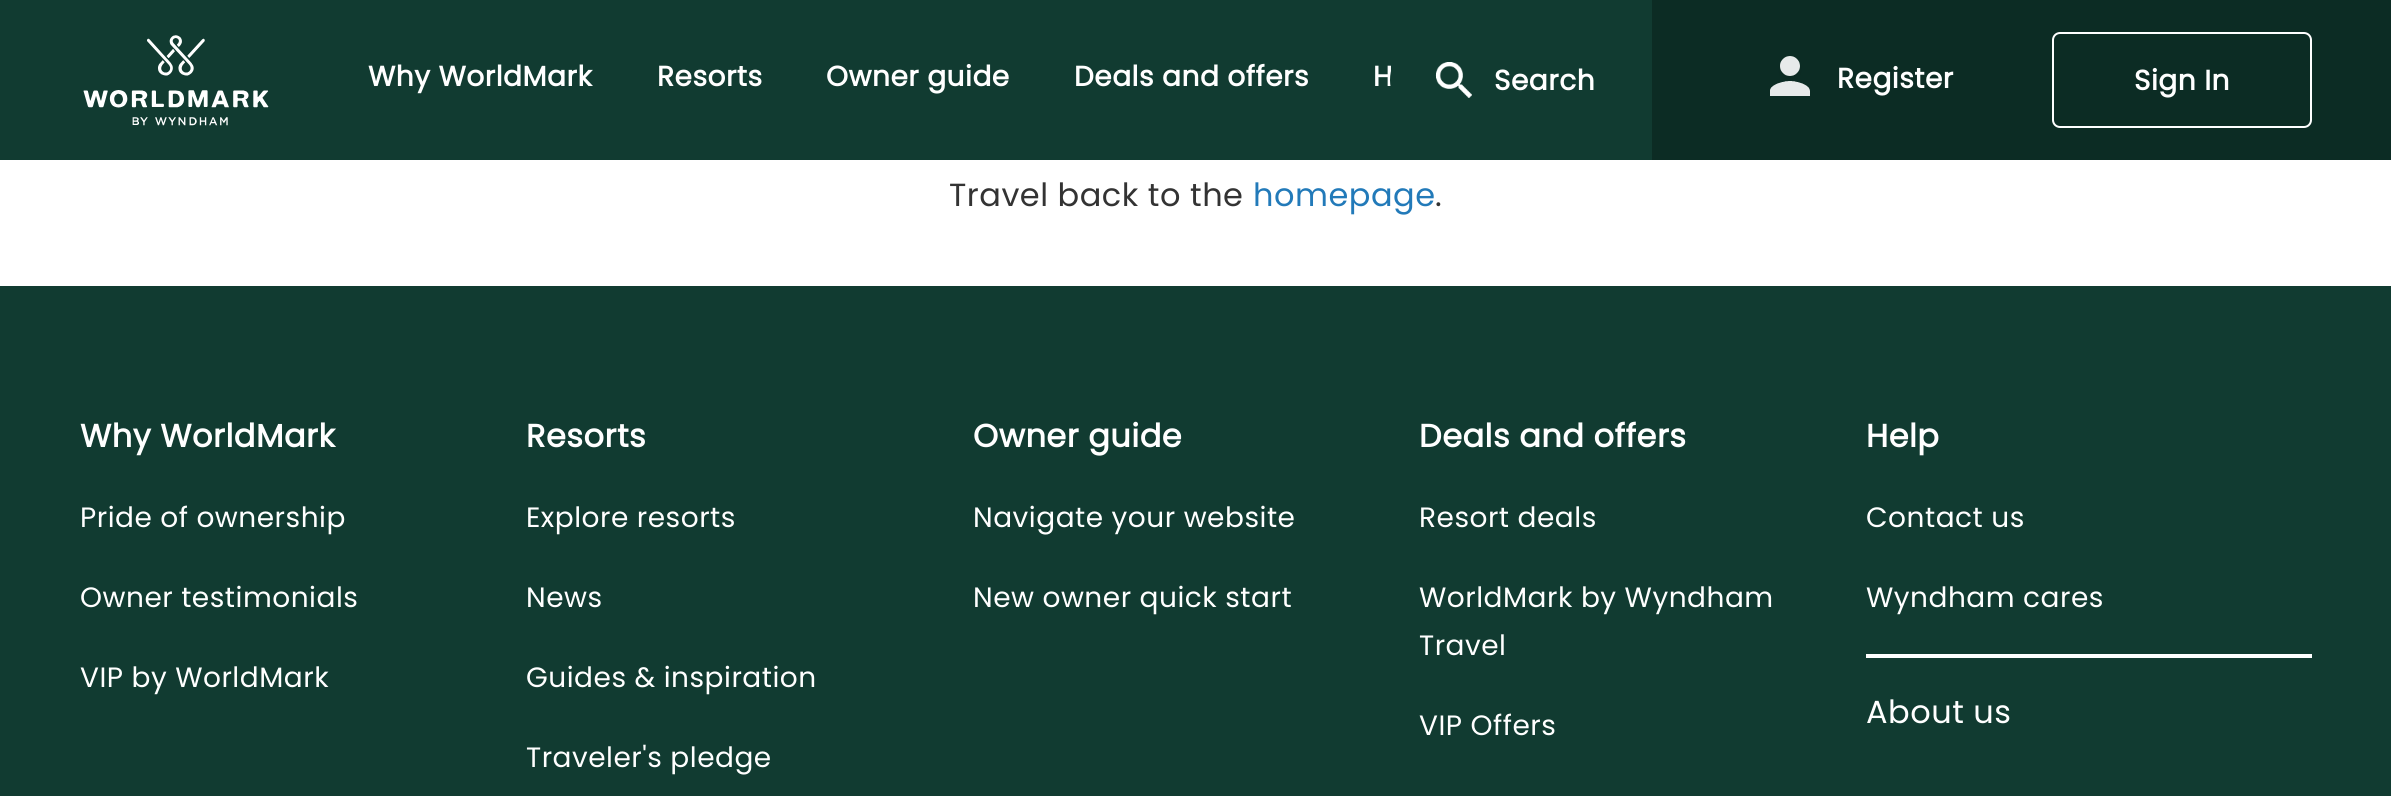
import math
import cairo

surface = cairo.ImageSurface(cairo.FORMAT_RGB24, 2391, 796)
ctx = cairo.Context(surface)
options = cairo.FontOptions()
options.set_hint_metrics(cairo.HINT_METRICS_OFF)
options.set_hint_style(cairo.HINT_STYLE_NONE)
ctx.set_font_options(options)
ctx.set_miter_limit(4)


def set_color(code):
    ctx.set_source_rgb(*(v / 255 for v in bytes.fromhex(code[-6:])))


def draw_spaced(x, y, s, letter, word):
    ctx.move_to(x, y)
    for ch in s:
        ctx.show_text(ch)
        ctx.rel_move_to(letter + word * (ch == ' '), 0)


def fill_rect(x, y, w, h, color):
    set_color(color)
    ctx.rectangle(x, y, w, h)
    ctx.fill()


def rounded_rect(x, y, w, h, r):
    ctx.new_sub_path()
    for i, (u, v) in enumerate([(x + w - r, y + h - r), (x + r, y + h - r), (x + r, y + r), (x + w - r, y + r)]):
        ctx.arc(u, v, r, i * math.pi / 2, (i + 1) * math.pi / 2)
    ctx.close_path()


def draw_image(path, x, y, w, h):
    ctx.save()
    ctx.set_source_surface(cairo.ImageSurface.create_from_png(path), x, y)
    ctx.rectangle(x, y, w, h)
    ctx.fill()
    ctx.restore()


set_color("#ffffff")
ctx.paint()
fill_rect(0, 0, 1652, 160, "#113b31")
draw_image("assets/img1.png", 83, 35, 186, 91)
ctx.select_font_face("Poppins", cairo.FONT_SLANT_NORMAL, cairo.FONT_WEIGHT_BOLD)
ctx.set_font_size(28)
set_color("#ffffff")
draw_spaced(368, 86, "Why WorldMark", 0.5, 0)
draw_spaced(657, 86, "Resorts", 0.5, 0)
draw_spaced(826, 86, "Owner guide", 0.5, 0)
draw_spaced(1074, 86, "Deals and offers", 0.5, 0)
draw_spaced(1373, 86, "H", 0.5, 0)
set_color("#113b31")
rounded_rect(1390, 40, 262, 80, 40)
ctx.fill()
draw_image("assets/img2.png", 1435, 62, 37, 36)
set_color("#ffffff")
draw_spaced(1494, 90, "Search", 0.5, 0)
fill_rect(1652, 0, 739, 160, "#0c2c24")
draw_image("assets/img3.png", 1770, 56, 40, 40)
set_color("#ffffff")
draw_spaced(1837, 88, "Register", 0.5, 0)
rounded_rect(2053, 33, 258, 94, 7)
ctx.stroke()
draw_spaced(2134, 90, "Sign In", 0.5, 0)
ctx.select_font_face("Poppins")
ctx.set_font_size(32)
set_color("#333333")
draw_spaced(949, 206, "Travel back to the", 0.5, 0)
set_color("#227ab9")
draw_spaced(1253, 206, "homepage", 0.5, 0)
set_color("#333333")
draw_spaced(1435, 206, ".", 0.5, 0)
fill_rect(0, 286, 2391, 510, "#113b31")
ctx.select_font_face("Poppins", cairo.FONT_SLANT_NORMAL, cairo.FONT_WEIGHT_BOLD)
set_color("#ffffff")
draw_spaced(80, 447, "Why WorldMark", 0.5, 0)
ctx.select_font_face("Poppins")
ctx.set_font_size(28)
draw_spaced(80, 527, "Pride of ownership", 0.5, 0)
draw_spaced(80, 607, "Owner testimonials", 0.5, 0)
draw_spaced(80, 687, "VIP by WorldMark", 0.5, 0)
ctx.select_font_face("Poppins", cairo.FONT_SLANT_NORMAL, cairo.FONT_WEIGHT_BOLD)
ctx.set_font_size(32)
draw_spaced(526, 447, "Resorts", 0.5, 0)
ctx.select_font_face("Poppins")
ctx.set_font_size(28)
draw_spaced(526, 527, "Explore resorts", 0.5, 0)
draw_spaced(526, 607, "News", 0.5, 0)
draw_spaced(526, 687, "Guides & inspiration", 0.5, 0)
draw_spaced(526, 767, "Traveler's pledge", 0.5, 0)
ctx.select_font_face("Poppins", cairo.FONT_SLANT_NORMAL, cairo.FONT_WEIGHT_BOLD)
ctx.set_font_size(32)
draw_spaced(973, 447, "Owner guide", 0.5, 0)
ctx.select_font_face("Poppins")
ctx.set_font_size(28)
draw_spaced(973, 527, "Navigate your website", 0.5, 0)
draw_spaced(973, 607, "New owner quick start", 0.5, 0)
ctx.select_font_face("Poppins", cairo.FONT_SLANT_NORMAL, cairo.FONT_WEIGHT_BOLD)
ctx.set_font_size(32)
draw_spaced(1419, 447, "Deals and offers", 0.5, 0)
ctx.select_font_face("Poppins")
ctx.set_font_size(28)
draw_spaced(1419, 527, "Resort deals", 0.5, 0)
draw_spaced(1419, 607, "WorldMark by Wyndham", 0.5, 0)
draw_spaced(1419, 655, "Travel", 0.5, 0)
draw_spaced(1419, 735, "VIP Offers", 0.5, 0)
ctx.select_font_face("Poppins", cairo.FONT_SLANT_NORMAL, cairo.FONT_WEIGHT_BOLD)
ctx.set_font_size(32)
draw_spaced(1866, 447, "Help", 0.5, 0)
ctx.select_font_face("Poppins")
ctx.set_font_size(28)
draw_spaced(1866, 527, "Contact us", 0.5, 0)
draw_spaced(1866, 607, "Wyndham cares", 0.5, 0)
fill_rect(1866, 654, 446, 4, "#ffffff")
ctx.set_font_size(32)
draw_spaced(1866, 723, "About us", 0.5, 0)
surface.write_to_png("output.png")
